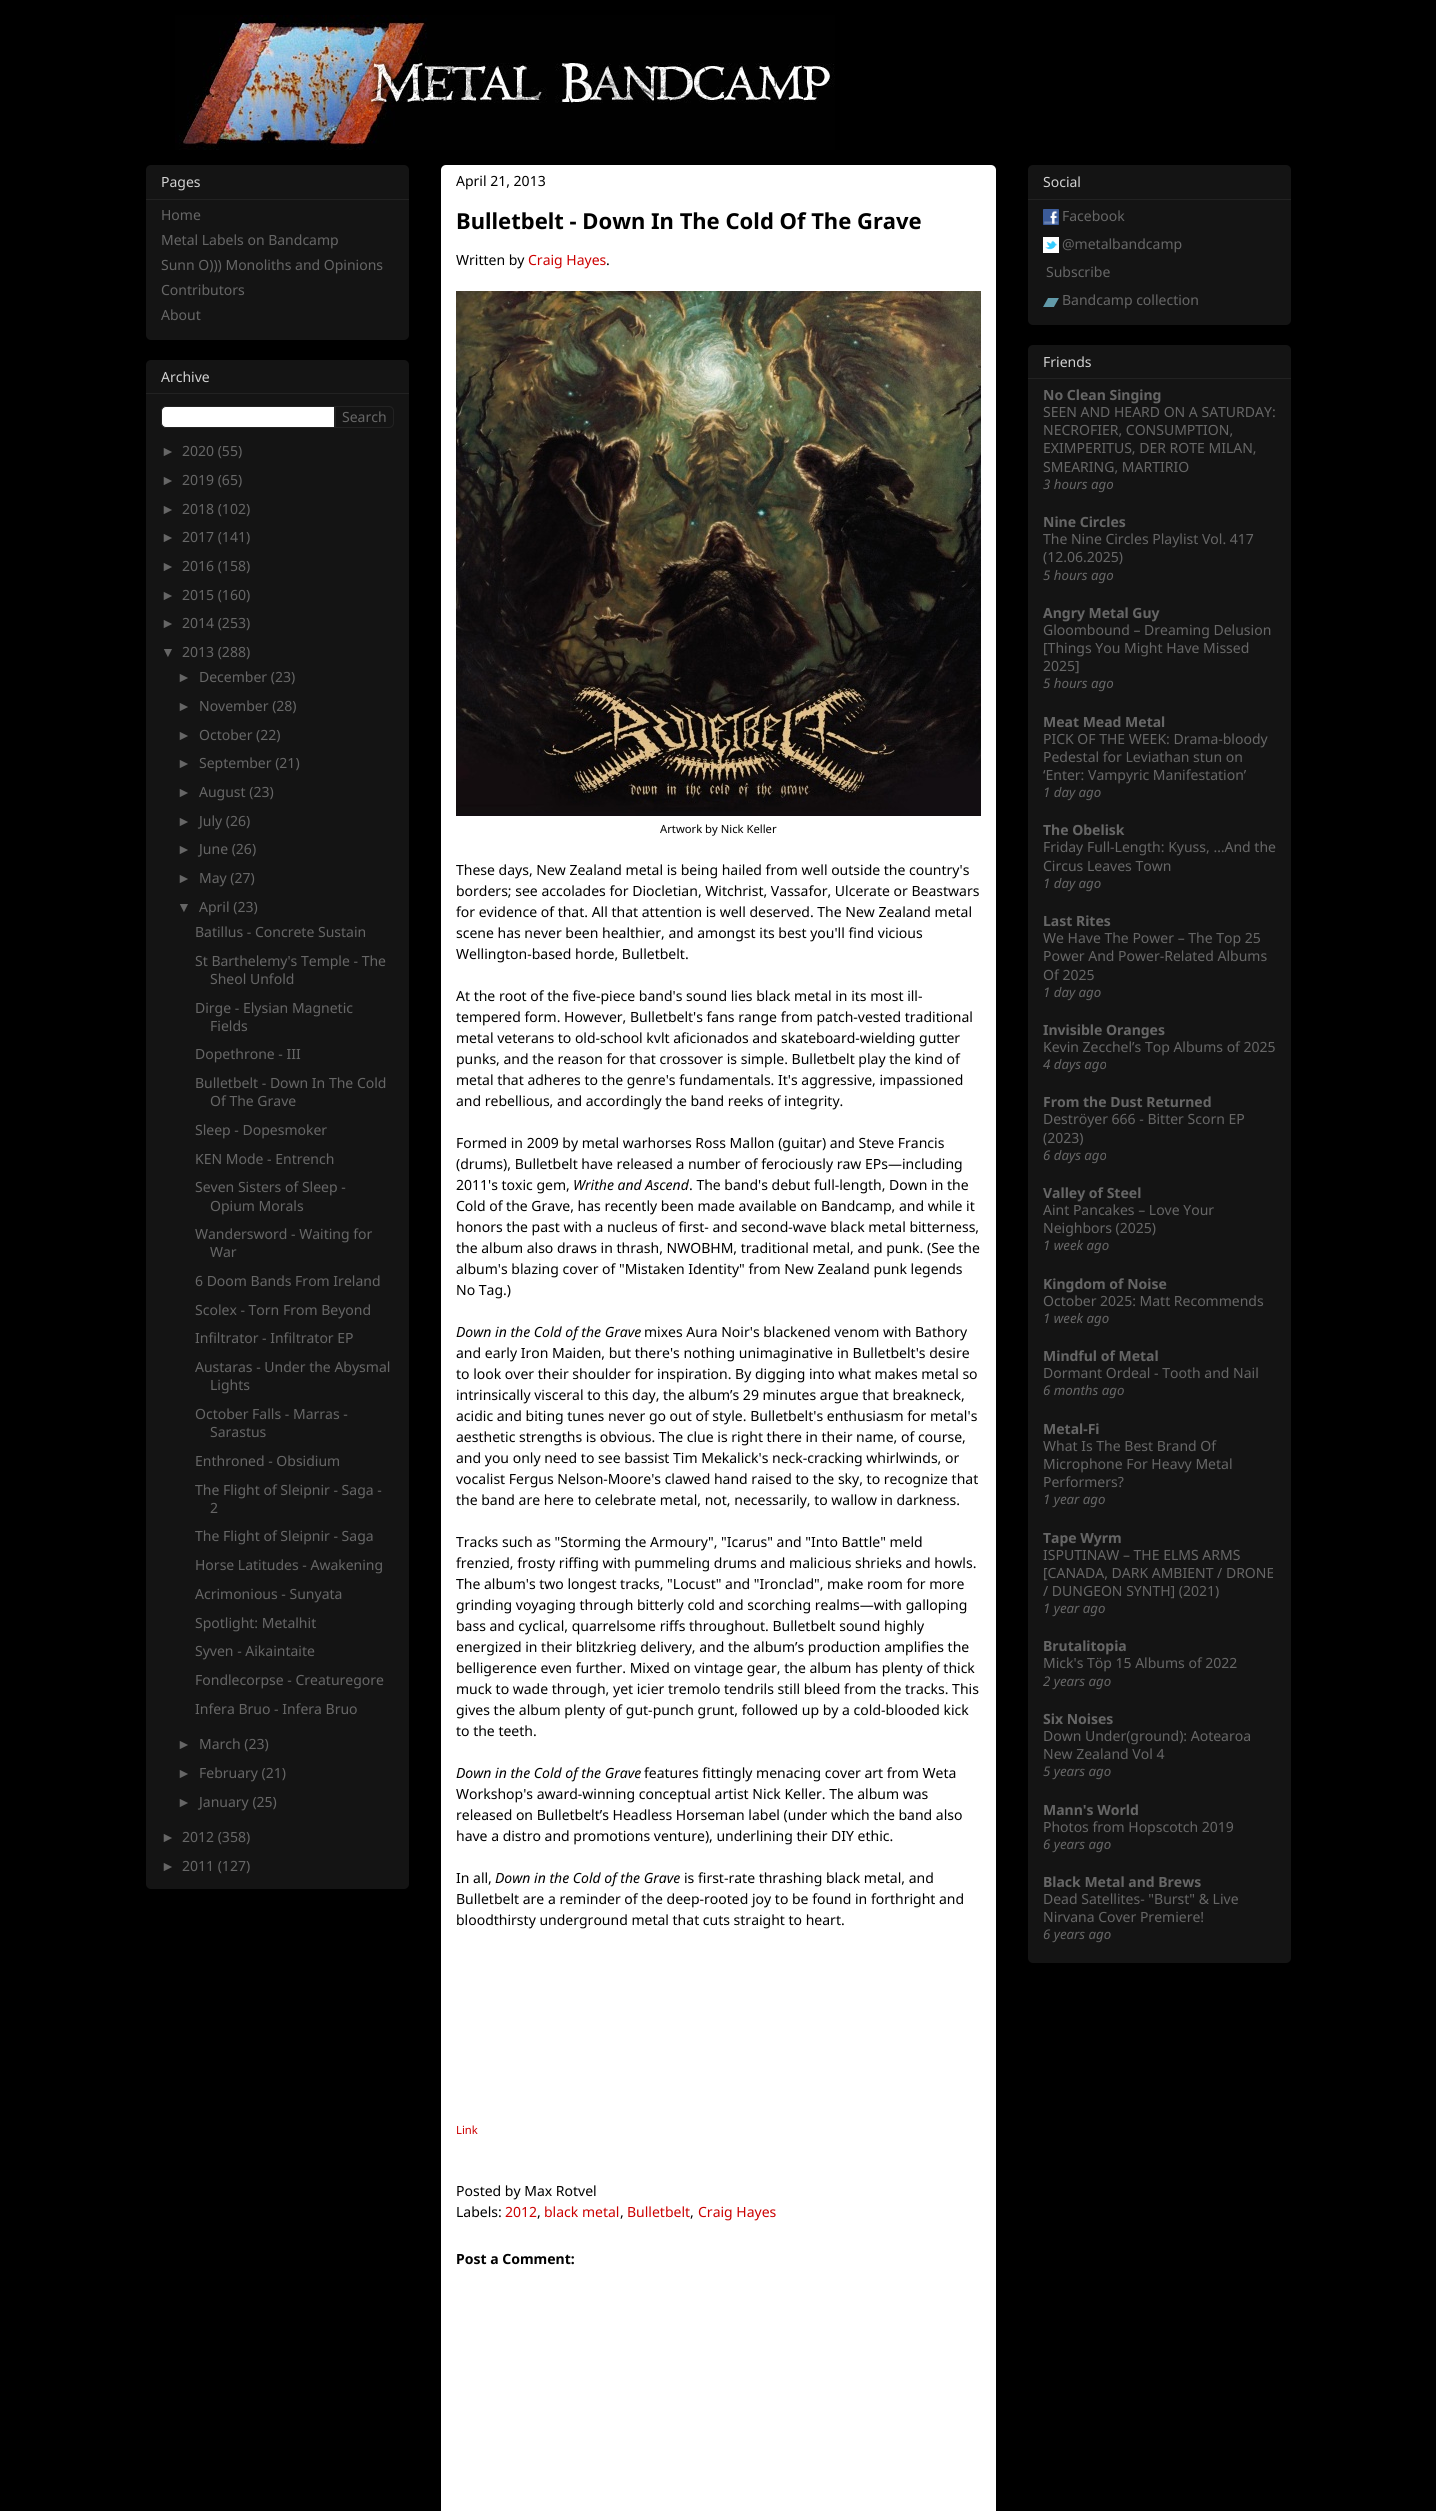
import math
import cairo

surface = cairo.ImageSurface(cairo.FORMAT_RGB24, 1436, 2511)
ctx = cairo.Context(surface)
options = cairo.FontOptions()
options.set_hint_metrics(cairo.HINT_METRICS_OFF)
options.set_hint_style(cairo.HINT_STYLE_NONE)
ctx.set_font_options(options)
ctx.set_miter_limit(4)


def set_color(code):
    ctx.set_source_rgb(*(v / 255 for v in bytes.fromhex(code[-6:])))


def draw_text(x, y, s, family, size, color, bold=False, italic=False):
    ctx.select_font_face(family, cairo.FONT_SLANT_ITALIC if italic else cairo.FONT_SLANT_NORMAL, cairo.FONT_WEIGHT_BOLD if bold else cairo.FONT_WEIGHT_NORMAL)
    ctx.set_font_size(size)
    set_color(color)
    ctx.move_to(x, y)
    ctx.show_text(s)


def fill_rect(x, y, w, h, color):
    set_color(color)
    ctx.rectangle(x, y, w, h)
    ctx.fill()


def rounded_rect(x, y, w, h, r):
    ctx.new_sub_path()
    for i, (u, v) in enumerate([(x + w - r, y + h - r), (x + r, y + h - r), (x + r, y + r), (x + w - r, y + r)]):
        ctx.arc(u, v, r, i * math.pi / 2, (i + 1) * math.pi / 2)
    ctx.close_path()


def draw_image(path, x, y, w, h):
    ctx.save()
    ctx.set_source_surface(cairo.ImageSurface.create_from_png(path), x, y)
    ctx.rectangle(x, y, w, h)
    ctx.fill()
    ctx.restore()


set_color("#000000")
ctx.paint()
draw_image("assets/img1.png", 175, 15, 660, 135)
set_color("#141414")
rounded_rect(146, 165, 263, 175, 5)
ctx.fill()
fill_rect(146, 199, 263, 1, "#222222")
draw_text(161, 187, "Pages", "Noto Sans", 14, "#d2d2d2")
draw_text(161, 220, "Home", "Noto Sans", 14, "#666666")
draw_text(161, 245, "Metal Labels on Bandcamp", "Noto Sans", 14, "#666666")
draw_text(161, 270, "Sunn O))) Monoliths and Opinions", "Noto Sans", 14, "#666666")
draw_text(161, 295, "Contributors", "Noto Sans", 14, "#666666")
draw_text(161, 320, "About", "Noto Sans", 14, "#666666")
set_color("#141414")
rounded_rect(146, 360, 263, 1529, 5)
ctx.fill()
fill_rect(146, 393, 263, 1, "#222222")
draw_text(161, 382, "Archive", "Noto Sans", 14, "#d2d2d2")
set_color("#ffffff")
ctx.new_path()
ctx.move_to(166, 406.5)
ctx.line_to(334.5, 406.5)
ctx.line_to(334.5, 427.5)
ctx.line_to(166, 427.5)
ctx.curve_to(163.5, 427.5, 161.5, 425.5, 161.5, 423)
ctx.line_to(161.5, 411)
ctx.curve_to(161.5, 408.5, 163.5, 406.5, 166, 406.5)
ctx.close_path()
ctx.fill_preserve()
set_color("#222222")
ctx.set_line_width(1)
ctx.stroke()
ctx.new_path()
ctx.move_to(335.5, 406.5)
ctx.line_to(389, 406.5)
ctx.curve_to(391.5, 406.5, 393.5, 408.5, 393.5, 411)
ctx.line_to(393.5, 423)
ctx.curve_to(393.5, 425.5, 391.5, 427.5, 389, 427.5)
ctx.line_to(335.5, 427.5)
ctx.close_path()
ctx.stroke()
draw_text(342, 422, "Search", "Noto Sans", 14, "#666666")
draw_text(161, 456, "►", "Liberation Sans", 14, "#666666")
draw_text(182, 456, "2020 (55)", "Noto Sans", 14, "#666666")
draw_text(161, 485, "►", "Liberation Sans", 14, "#666666")
draw_text(182, 485, "2019 (65)", "Noto Sans", 14, "#666666")
draw_text(161, 514, "►", "Liberation Sans", 14, "#666666")
draw_text(182, 514, "2018 (102)", "Noto Sans", 14, "#666666")
draw_text(161, 542, "►", "Liberation Sans", 14, "#666666")
draw_text(182, 542, "2017 (141)", "Noto Sans", 14, "#666666")
draw_text(161, 571, "►", "Liberation Sans", 14, "#666666")
draw_text(182, 571, "2016 (158)", "Noto Sans", 14, "#666666")
draw_text(161, 600, "►", "Liberation Sans", 14, "#666666")
draw_text(182, 600, "2015 (160)", "Noto Sans", 14, "#666666")
draw_text(161, 628, "►", "Liberation Sans", 14, "#666666")
draw_text(182, 628, "2014 (253)", "Noto Sans", 14, "#666666")
draw_text(161, 657, "▼", "Liberation Sans", 14, "#666666")
draw_text(182, 657, "2013 (288)", "Noto Sans", 14, "#666666")
draw_text(177, 682, "►", "Liberation Sans", 14, "#666666")
draw_text(199, 682, "December (23)", "Noto Sans", 14, "#666666")
draw_text(177, 711, "►", "Liberation Sans", 14, "#666666")
draw_text(199, 711, "November (28)", "Noto Sans", 14, "#666666")
draw_text(177, 740, "►", "Liberation Sans", 14, "#666666")
draw_text(199, 740, "October (22)", "Noto Sans", 14, "#666666")
draw_text(177, 768, "►", "Liberation Sans", 14, "#666666")
draw_text(199, 768, "September (21)", "Noto Sans", 14, "#666666")
draw_text(177, 797, "►", "Liberation Sans", 14, "#666666")
draw_text(199, 797, "August (23)", "Noto Sans", 14, "#666666")
draw_text(177, 826, "►", "Liberation Sans", 14, "#666666")
draw_text(199, 826, "July (26)", "Noto Sans", 14, "#666666")
draw_text(177, 854, "►", "Liberation Sans", 14, "#666666")
draw_text(199, 854, "June (26)", "Noto Sans", 14, "#666666")
draw_text(177, 883, "►", "Liberation Sans", 14, "#666666")
draw_text(199, 883, "May (27)", "Noto Sans", 14, "#666666")
draw_text(177, 912, "▼", "Liberation Sans", 14, "#666666")
draw_text(199, 912, "April (23)", "Noto Sans", 14, "#666666")
draw_text(195, 937, "Batillus - Concrete Sustain", "Noto Sans", 14, "#666666")
draw_text(195, 966, "St Barthelemy's Temple - The", "Noto Sans", 14, "#666666")
draw_text(210, 984, "Sheol Unfold", "Noto Sans", 14, "#666666")
draw_text(195, 1013, "Dirge - Elysian Magnetic", "Noto Sans", 14, "#666666")
draw_text(210, 1031, "Fields", "Noto Sans", 14, "#666666")
draw_text(195, 1059, "Dopethrone - III", "Noto Sans", 14, "#666666")
draw_text(195, 1088, "Bulletbelt - Down In The Cold", "Noto Sans", 14, "#666666")
draw_text(210, 1106, "Of The Grave", "Noto Sans", 14, "#666666")
draw_text(195, 1135, "Sleep - Dopesmoker", "Noto Sans", 14, "#666666")
draw_text(195, 1164, "KEN Mode - Entrench", "Noto Sans", 14, "#666666")
draw_text(195, 1192, "Seven Sisters of Sleep -", "Noto Sans", 14, "#666666")
draw_text(210, 1211, "Opium Morals", "Noto Sans", 14, "#666666")
draw_text(195, 1239, "Wandersword - Waiting for", "Noto Sans", 14, "#666666")
draw_text(210, 1257, "War", "Noto Sans", 14, "#666666")
draw_text(195, 1286, "6 Doom Bands From Ireland", "Noto Sans", 14, "#666666")
draw_text(195, 1315, "Scolex - Torn From Beyond", "Noto Sans", 14, "#666666")
draw_text(195, 1343, "Infiltrator - Infiltrator EP", "Noto Sans", 14, "#666666")
draw_text(195, 1372, "Austaras - Under the Abysmal", "Noto Sans", 14, "#666666")
draw_text(210, 1390, "Lights", "Noto Sans", 14, "#666666")
draw_text(195, 1419, "October Falls - Marras -", "Noto Sans", 14, "#666666")
draw_text(210, 1437, "Sarastus", "Noto Sans", 14, "#666666")
draw_text(195, 1466, "Enthroned - Obsidium", "Noto Sans", 14, "#666666")
draw_text(195, 1495, "The Flight of Sleipnir - Saga -", "Noto Sans", 14, "#666666")
draw_text(210, 1513, "2", "Noto Sans", 14, "#666666")
draw_text(195, 1541, "The Flight of Sleipnir - Saga", "Noto Sans", 14, "#666666")
draw_text(195, 1570, "Horse Latitudes - Awakening", "Noto Sans", 14, "#666666")
draw_text(195, 1599, "Acrimonious - Sunyata", "Noto Sans", 14, "#666666")
draw_text(195, 1628, "Spotlight: Metalhit", "Noto Sans", 14, "#666666")
draw_text(195, 1656, "Syven - Aikaintaite", "Noto Sans", 14, "#666666")
draw_text(195, 1685, "Fondlecorpse - Creaturegore", "Noto Sans", 14, "#666666")
draw_text(195, 1714, "Infera Bruo - Infera Bruo", "Noto Sans", 14, "#666666")
draw_text(177, 1749, "►", "Liberation Sans", 14, "#666666")
draw_text(199, 1749, "March (23)", "Noto Sans", 14, "#666666")
draw_text(177, 1778, "►", "Liberation Sans", 14, "#666666")
draw_text(199, 1778, "February (21)", "Noto Sans", 14, "#666666")
draw_text(177, 1807, "►", "Liberation Sans", 14, "#666666")
draw_text(199, 1807, "January (25)", "Noto Sans", 14, "#666666")
draw_text(161, 1842, "►", "Liberation Sans", 14, "#666666")
draw_text(182, 1842, "2012 (358)", "Noto Sans", 14, "#666666")
draw_text(161, 1871, "►", "Liberation Sans", 14, "#666666")
draw_text(182, 1871, "2011 (127)", "Noto Sans", 14, "#666666")
set_color("#ffffff")
rounded_rect(441, 165, 555, 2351, 5)
ctx.fill()
draw_text(456, 186, "April 21, 2013", "Noto Sans", 14, "#000000")
draw_text(456, 229, "Bulletbelt - Down In The Cold Of The Grave", "Noto Sans", 22, "#000000", bold=True)
draw_text(456, 265, "Written by", "Noto Sans", 14, "#000000")
draw_text(528, 265, "Craig Hayes", "Noto Sans", 14, "#cc0000")
draw_text(606, 265, ".", "Noto Sans", 14, "#000000")
draw_image("assets/img2.png", 456, 291, 525, 525)
draw_text(660, 833, "Artwork by Nick Keller", "Noto Sans", 11.25, "#000000")
draw_text(456, 875, "These days, New Zealand metal is being hailed from well outside the country's", "Noto Sans", 14, "#000000")
draw_text(456, 896, "borders; see accolades for Diocletian, Witchrist, Vassafor, Ulcerate or Beastwars", "Noto Sans", 14, "#000000")
draw_text(456, 917, "for evidence of that. All that attention is well deserved. The New Zealand metal", "Noto Sans", 14, "#000000")
draw_text(456, 938, "scene has never been healthier, and amongst its best you'll find vicious", "Noto Sans", 14, "#000000")
draw_text(456, 959, "Wellington-based horde, Bulletbelt.", "Noto Sans", 14, "#000000")
draw_text(456, 1001, "At the root of the five-piece band's sound lies black metal in its most ill-", "Noto Sans", 14, "#000000")
draw_text(456, 1022, "tempered form. However, Bulletbelt's fans range from patch-vested traditional", "Noto Sans", 14, "#000000")
draw_text(456, 1043, "metal veterans to old-school kvlt aficionados and skateboard-wielding gutter", "Noto Sans", 14, "#000000")
draw_text(456, 1064, "punks, and the reason for that crossover is simple. Bulletbelt play the kind of", "Noto Sans", 14, "#000000")
draw_text(456, 1085, "metal that adheres to the genre's fundamentals. It's aggressive, impassioned", "Noto Sans", 14, "#000000")
draw_text(456, 1106, "and rebellious, and accordingly the band reeks of integrity.", "Noto Sans", 14, "#000000")
draw_text(456, 1148, "Formed in 2009 by metal warhorses Ross Mallon (guitar) and Steve Francis", "Noto Sans", 14, "#000000")
draw_text(456, 1169, "(drums), Bulletbelt have released a number of ferociously raw EPs—including", "Noto Sans", 14, "#000000")
draw_text(456, 1190, "2011's toxic gem,", "Noto Sans", 14, "#000000")
draw_text(573, 1190, "Writhe and Ascend", "Noto Sans", 14, "#000000", italic=True)
draw_text(689, 1190, ". The band's debut full-length, Down in the", "Noto Sans", 14, "#000000")
draw_text(456, 1211, "Cold of the Grave, has recently been made available on Bandcamp, and while it", "Noto Sans", 14, "#000000")
draw_text(456, 1232, "honors the past with a nucleus of first- and second-wave black metal bitterness,", "Noto Sans", 14, "#000000")
draw_text(456, 1253, "the album also draws in thrash, NWOBHM, traditional metal, and punk. (See the", "Noto Sans", 14, "#000000")
draw_text(456, 1274, "album's blazing cover of \"Mistaken Identity\" from New Zealand punk legends", "Noto Sans", 14, "#000000")
draw_text(456, 1295, "No Tag.)", "Noto Sans", 14, "#000000")
draw_text(456, 1337, "Down in the Cold of the Grave", "Noto Sans", 14, "#000000", italic=True)
draw_text(644, 1337, "mixes Aura Noir's blackened venom with Bathory", "Noto Sans", 14, "#000000")
draw_text(456, 1358, "and early Iron Maiden, but there's nothing unimaginative in Bulletbelt's desire", "Noto Sans", 14, "#000000")
draw_text(456, 1379, "to look over their shoulder for inspiration. By digging into what makes metal so", "Noto Sans", 14, "#000000")
draw_text(456, 1400, "intrinsically visceral to this day, the album’s 29 minutes argue that breakneck,", "Noto Sans", 14, "#000000")
draw_text(456, 1421, "acidic and biting tunes never go out of style. Bulletbelt's enthusiasm for metal's", "Noto Sans", 14, "#000000")
draw_text(456, 1442, "aesthetic strengths is obvious. The clue is right there in their name, of course,", "Noto Sans", 14, "#000000")
draw_text(456, 1463, "and you only need to see bassist Tim Mekalick's neck-cracking whirlwinds, or", "Noto Sans", 14, "#000000")
draw_text(456, 1484, "vocalist Fergus Nelson-Moore's clawed hand raised to the sky, to recognize that", "Noto Sans", 14, "#000000")
draw_text(456, 1505, "the band are here to celebrate metal, not, necessarily, to wallow in darkness.", "Noto Sans", 14, "#000000")
draw_text(456, 1547, "Tracks such as \"Storming the Armoury\", \"Icarus\" and \"Into Battle\" meld", "Noto Sans", 14, "#000000")
draw_text(456, 1568, "frenzied, frosty riffing with pummeling drums and malicious shrieks and howls.", "Noto Sans", 14, "#000000")
draw_text(456, 1589, "The album's two longest tracks, \"Locust\" and \"Ironclad\", make room for more", "Noto Sans", 14, "#000000")
draw_text(456, 1610, "grinding voyaging through bitterly cold and scorching realms—with galloping", "Noto Sans", 14, "#000000")
draw_text(456, 1631, "bass and cyclical, quarrelsome riffs throughout. Bulletbelt sound highly", "Noto Sans", 14, "#000000")
draw_text(456, 1652, "energized in their blitzkrieg delivery, and the album’s production amplifies the", "Noto Sans", 14, "#000000")
draw_text(456, 1673, "belligerence even further. Mixed on vintage gear, the album has plenty of thick", "Noto Sans", 14, "#000000")
draw_text(456, 1694, "muck to wade through, yet icier tremolo tendrils still bleed from the tracks. This", "Noto Sans", 14, "#000000")
draw_text(456, 1715, "gives the album plenty of gut-punch grunt, followed up by a cold-blooded kick", "Noto Sans", 14, "#000000")
draw_text(456, 1736, "to the teeth.", "Noto Sans", 14, "#000000")
draw_text(456, 1778, "Down in the Cold of the Grave", "Noto Sans", 14, "#000000", italic=True)
draw_text(644, 1778, "features fittingly menacing cover art from Weta", "Noto Sans", 14, "#000000")
draw_text(456, 1799, "Workshop's award-winning conceptual artist Nick Keller. The album was", "Noto Sans", 14, "#000000")
draw_text(456, 1820, "released on Bulletbelt’s Headless Horseman label (under which the band also", "Noto Sans", 14, "#000000")
draw_text(456, 1841, "have a distro and promotions venture), underlining their DIY ethic.", "Noto Sans", 14, "#000000")
draw_text(456, 1883, "In all,", "Noto Sans", 14, "#000000")
draw_text(495, 1883, "Down in the Cold of the Grave", "Noto Sans", 14, "#000000", italic=True)
draw_text(684, 1883, "is first-rate thrashing black metal, and", "Noto Sans", 14, "#000000")
draw_text(456, 1904, "Bulletbelt are a reminder of the deep-rooted joy to be found in forthright and", "Noto Sans", 14, "#000000")
draw_text(456, 1925, "bloodthirsty underground metal that cuts straight to heart.", "Noto Sans", 14, "#000000")
draw_text(456, 2134, "Link", "Noto Sans", 11.25, "#cc0000")
draw_text(456, 2196, "Posted by Max Rotvel", "Noto Sans", 14, "#000000")
draw_text(456, 2217, "Labels:", "Noto Sans", 14, "#000000")
draw_text(505, 2217, "2012", "Noto Sans", 14, "#cc0000")
draw_text(537, 2217, ",", "Noto Sans", 14, "#000000")
draw_text(544, 2217, "black metal", "Noto Sans", 14, "#cc0000")
draw_text(620, 2217, ",", "Noto Sans", 14, "#000000")
draw_text(627, 2217, "Bulletbelt", "Noto Sans", 14, "#cc0000")
draw_text(690, 2217, ",", "Noto Sans", 14, "#000000")
draw_text(698, 2217, "Craig Hayes", "Noto Sans", 14, "#cc0000")
draw_text(456, 2264, "Post a Comment:", "Noto Sans", 14, "#000000", bold=True)
set_color("#141414")
rounded_rect(1028, 165, 263, 160, 5)
ctx.fill()
fill_rect(1028, 199, 263, 1, "#222222")
draw_text(1043, 187, "Social", "Noto Sans", 14, "#d2d2d2")
draw_image("assets/img3.png", 1043, 209, 16, 16)
draw_text(1062, 221, "Facebook", "Noto Sans", 14, "#666666")
draw_image("assets/img4.png", 1043, 237, 16, 16)
draw_text(1062, 249, "@metalbandcamp", "Noto Sans", 14, "#666666")
draw_text(1046, 277, "Subscribe", "Noto Sans", 14, "#666666")
draw_image("assets/img5.png", 1043, 298, 16, 9)
draw_text(1062, 305, "Bandcamp collection", "Noto Sans", 14, "#666666")
set_color("#141414")
rounded_rect(1028, 345, 263, 1618, 5)
ctx.fill()
fill_rect(1028, 378, 263, 1, "#222222")
draw_text(1043, 367, "Friends", "Noto Sans", 14, "#d2d2d2")
draw_text(1043, 400, "No Clean Singing", "Noto Sans", 14, "#666666", bold=True)
draw_text(1043, 417, "SEEN AND HEARD ON A SATURDAY:", "Noto Sans", 14, "#666666")
draw_text(1043, 435, "NECROFIER, CONSUMPTION,", "Noto Sans", 14, "#666666")
draw_text(1043, 453, "EXIMPERITUS, DER ROTE MILAN,", "Noto Sans", 14, "#666666")
draw_text(1043, 472, "SMEARING, MARTIRIO", "Noto Sans", 14, "#666666")
draw_text(1043, 489, "3 hours ago", "Noto Sans", 13.25, "#666666", italic=True)
draw_text(1043, 527, "Nine Circles", "Noto Sans", 14, "#666666", bold=True)
draw_text(1043, 544, "The Nine Circles Playlist Vol. 417", "Noto Sans", 14, "#666666")
draw_text(1043, 562, "(12.06.2025)", "Noto Sans", 14, "#666666")
draw_text(1043, 580, "5 hours ago", "Noto Sans", 13.25, "#666666", italic=True)
draw_text(1043, 618, "Angry Metal Guy", "Noto Sans", 14, "#666666", bold=True)
draw_text(1043, 635, "Gloombound – Dreaming Delusion", "Noto Sans", 14, "#666666")
draw_text(1043, 653, "[Things You Might Have Missed", "Noto Sans", 14, "#666666")
draw_text(1043, 671, "2025]", "Noto Sans", 14, "#666666")
draw_text(1043, 688, "5 hours ago", "Noto Sans", 13.25, "#666666", italic=True)
draw_text(1043, 727, "Meat Mead Metal", "Noto Sans", 14, "#666666", bold=True)
draw_text(1043, 744, "PICK OF THE WEEK: Drama-bloody", "Noto Sans", 14, "#666666")
draw_text(1043, 762, "Pedestal for Leviathan stun on", "Noto Sans", 14, "#666666")
draw_text(1043, 780, "‘Enter: Vampyric Manifestation’", "Noto Sans", 14, "#666666")
draw_text(1043, 797, "1 day ago", "Noto Sans", 13.25, "#666666", italic=True)
draw_text(1043, 835, "The Obelisk", "Noto Sans", 14, "#666666", bold=True)
draw_text(1043, 852, "Friday Full-Length: Kyuss, …And the", "Noto Sans", 14, "#666666")
draw_text(1043, 871, "Circus Leaves Town", "Noto Sans", 14, "#666666")
draw_text(1043, 888, "1 day ago", "Noto Sans", 13.25, "#666666", italic=True)
draw_text(1043, 926, "Last Rites", "Noto Sans", 14, "#666666", bold=True)
draw_text(1043, 943, "We Have The Power – The Top 25", "Noto Sans", 14, "#666666")
draw_text(1043, 961, "Power And Power-Related Albums", "Noto Sans", 14, "#666666")
draw_text(1043, 980, "Of 2025", "Noto Sans", 14, "#666666")
draw_text(1043, 997, "1 day ago", "Noto Sans", 13.25, "#666666", italic=True)
draw_text(1043, 1035, "Invisible Oranges", "Noto Sans", 14, "#666666", bold=True)
draw_text(1043, 1052, "Kevin Zecchel’s Top Albums of 2025", "Noto Sans", 14, "#666666")
draw_text(1043, 1069, "4 days ago", "Noto Sans", 13.25, "#666666", italic=True)
draw_text(1043, 1107, "From the Dust Returned", "Noto Sans", 14, "#666666", bold=True)
draw_text(1043, 1124, "Deströyer 666 - Bitter Scorn EP", "Noto Sans", 14, "#666666")
draw_text(1043, 1143, "(2023)", "Noto Sans", 14, "#666666")
draw_text(1043, 1160, "6 days ago", "Noto Sans", 13.25, "#666666", italic=True)
draw_text(1043, 1198, "Valley of Steel", "Noto Sans", 14, "#666666", bold=True)
draw_text(1043, 1215, "Aint Pancakes – Love Your", "Noto Sans", 14, "#666666")
draw_text(1043, 1233, "Neighbors (2025)", "Noto Sans", 14, "#666666")
draw_text(1043, 1250, "1 week ago", "Noto Sans", 13.25, "#666666", italic=True)
draw_text(1043, 1289, "Kingdom of Noise", "Noto Sans", 14, "#666666", bold=True)
draw_text(1043, 1306, "October 2025: Matt Recommends", "Noto Sans", 14, "#666666")
draw_text(1043, 1323, "1 week ago", "Noto Sans", 13.25, "#666666", italic=True)
draw_text(1043, 1361, "Mindful of Metal", "Noto Sans", 14, "#666666", bold=True)
draw_text(1043, 1378, "Dormant Ordeal - Tooth and Nail", "Noto Sans", 14, "#666666")
draw_text(1043, 1395, "6 months ago", "Noto Sans", 13.25, "#666666", italic=True)
draw_text(1043, 1434, "Metal-Fi", "Noto Sans", 14, "#666666", bold=True)
draw_text(1043, 1451, "What Is The Best Brand Of", "Noto Sans", 14, "#666666")
draw_text(1043, 1469, "Microphone For Heavy Metal", "Noto Sans", 14, "#666666")
draw_text(1043, 1487, "Performers?", "Noto Sans", 14, "#666666")
draw_text(1043, 1504, "1 year ago", "Noto Sans", 13.25, "#666666", italic=True)
draw_text(1043, 1543, "Tape Wyrm", "Noto Sans", 14, "#666666", bold=True)
draw_text(1043, 1560, "ISPUTINAW – THE ELMS ARMS", "Noto Sans", 14, "#666666")
draw_text(1043, 1578, "[CANADA, DARK AMBIENT / DRONE", "Noto Sans", 14, "#666666")
draw_text(1043, 1596, "/ DUNGEON SYNTH] (2021)", "Noto Sans", 14, "#666666")
draw_text(1043, 1613, "1 year ago", "Noto Sans", 13.25, "#666666", italic=True)
draw_text(1043, 1651, "Brutalitopia", "Noto Sans", 14, "#666666", bold=True)
draw_text(1043, 1668, "Mick's Töp 15 Albums of 2022", "Noto Sans", 14, "#666666")
draw_text(1043, 1686, "2 years ago", "Noto Sans", 13.25, "#666666", italic=True)
draw_text(1043, 1724, "Six Noises", "Noto Sans", 14, "#666666", bold=True)
draw_text(1043, 1741, "Down Under(ground): Aotearoa", "Noto Sans", 14, "#666666")
draw_text(1043, 1759, "New Zealand Vol 4", "Noto Sans", 14, "#666666")
draw_text(1043, 1776, "5 years ago", "Noto Sans", 13.25, "#666666", italic=True)
draw_text(1043, 1815, "Mann's World", "Noto Sans", 14, "#666666", bold=True)
draw_text(1043, 1832, "Photos from Hopscotch 2019", "Noto Sans", 14, "#666666")
draw_text(1043, 1849, "6 years ago", "Noto Sans", 13.25, "#666666", italic=True)
draw_text(1043, 1887, "Black Metal and Brews", "Noto Sans", 14, "#666666", bold=True)
draw_text(1043, 1904, "Dead Satellites- \"Burst\" & Live", "Noto Sans", 14, "#666666")
draw_text(1043, 1922, "Nirvana Cover Premiere!", "Noto Sans", 14, "#666666")
draw_text(1043, 1939, "6 years ago", "Noto Sans", 13.25, "#666666", italic=True)
surface.write_to_png("output.png")
